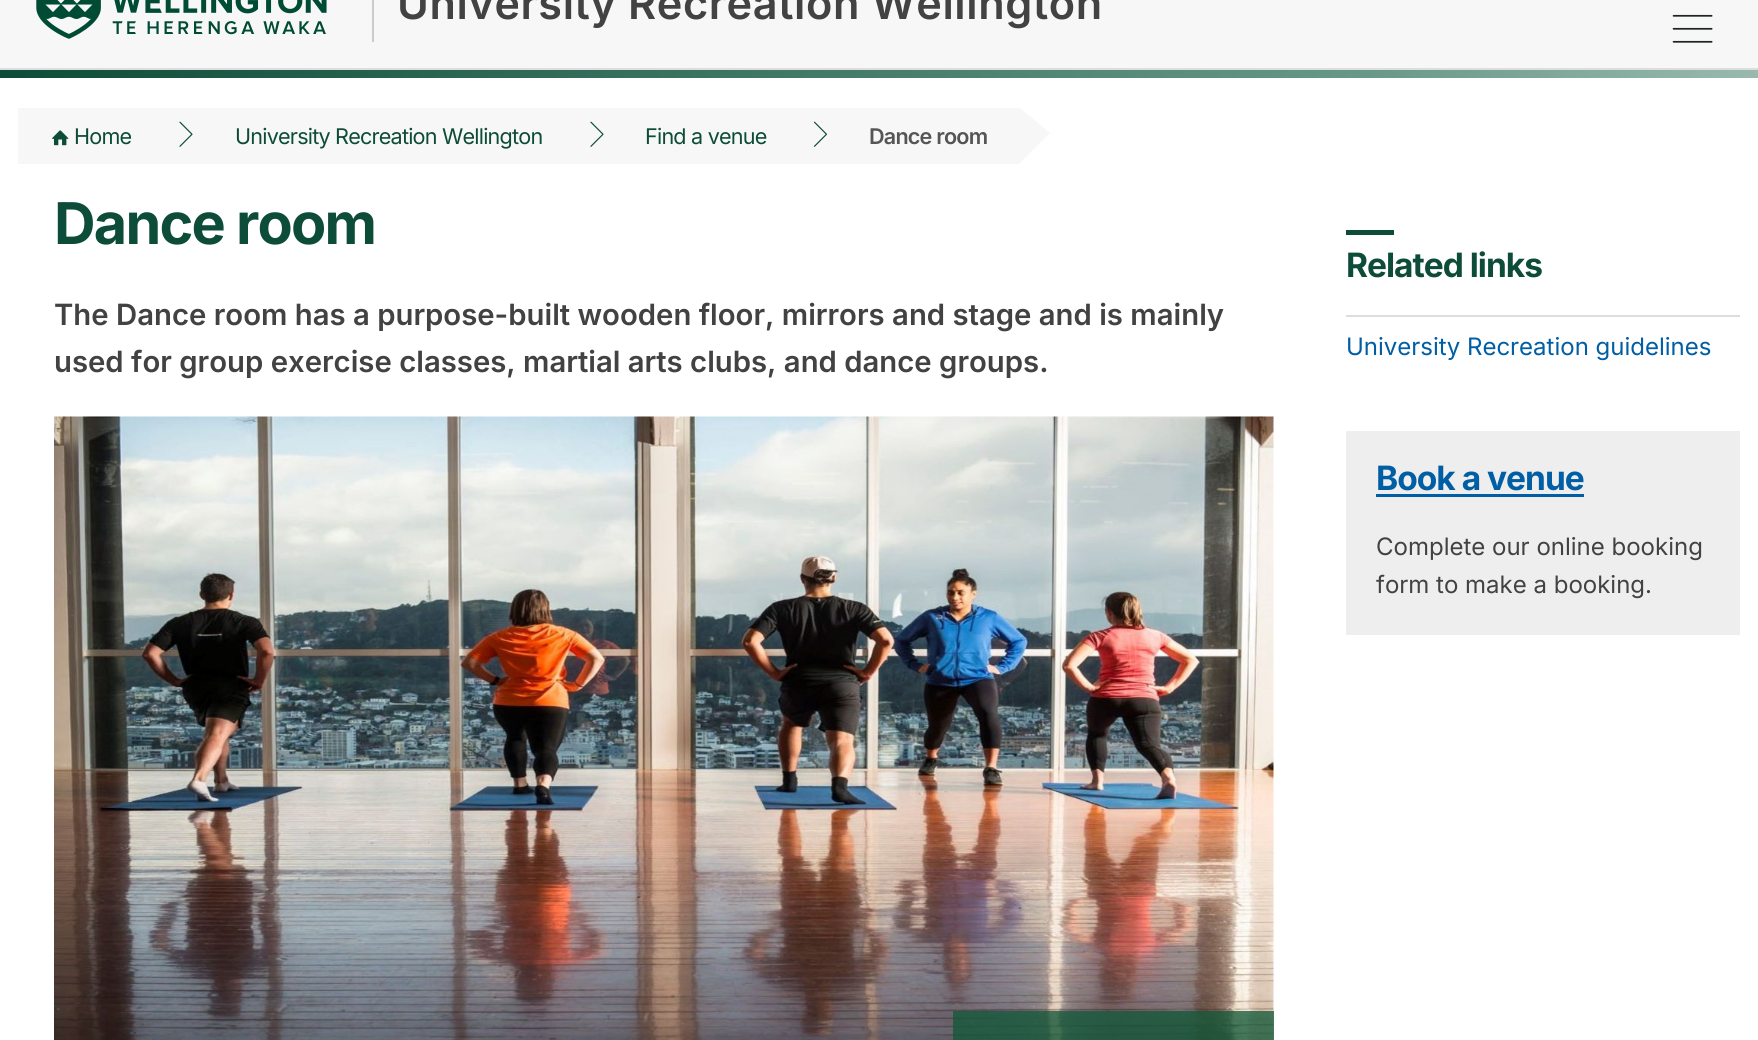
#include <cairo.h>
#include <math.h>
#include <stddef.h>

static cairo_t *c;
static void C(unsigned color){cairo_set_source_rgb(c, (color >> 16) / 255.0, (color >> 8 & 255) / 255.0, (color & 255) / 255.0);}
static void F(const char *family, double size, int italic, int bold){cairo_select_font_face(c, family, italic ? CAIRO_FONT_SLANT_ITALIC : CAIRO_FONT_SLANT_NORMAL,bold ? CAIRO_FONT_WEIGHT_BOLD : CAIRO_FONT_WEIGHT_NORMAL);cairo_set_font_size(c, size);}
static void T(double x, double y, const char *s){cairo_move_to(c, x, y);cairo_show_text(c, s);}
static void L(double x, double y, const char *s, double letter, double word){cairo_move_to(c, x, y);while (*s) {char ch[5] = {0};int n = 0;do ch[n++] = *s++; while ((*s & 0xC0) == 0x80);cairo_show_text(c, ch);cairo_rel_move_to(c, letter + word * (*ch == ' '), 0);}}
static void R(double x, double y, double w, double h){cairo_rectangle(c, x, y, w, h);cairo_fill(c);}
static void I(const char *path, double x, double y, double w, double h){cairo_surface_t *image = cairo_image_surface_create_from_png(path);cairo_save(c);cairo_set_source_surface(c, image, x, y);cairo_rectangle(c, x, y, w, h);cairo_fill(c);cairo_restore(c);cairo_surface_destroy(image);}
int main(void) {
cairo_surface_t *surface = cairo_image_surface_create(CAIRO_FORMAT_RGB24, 1758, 1040);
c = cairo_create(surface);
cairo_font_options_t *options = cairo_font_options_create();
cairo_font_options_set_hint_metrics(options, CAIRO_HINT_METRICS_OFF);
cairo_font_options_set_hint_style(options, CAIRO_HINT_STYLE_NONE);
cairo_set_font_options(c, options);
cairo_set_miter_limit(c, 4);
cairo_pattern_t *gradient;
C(0xffffff);
cairo_paint(c);
C(0xf7f7f7);
R(0,0,1758,68);
C(0xdddddd);
R(0,68,1758,2);
C(0xcccccc);
R(372,0,2,42);
I("1.png",36,0,291,39);
F("Inter SemiBold",43.25,0,0);
C(0x424242);
L(397,19,"University Recreation Wellington",.6,0);
I("2.png",1672,14,41,29);
gradient = cairo_pattern_create_linear(0,74,1758,73);
cairo_pattern_add_color_stop_rgba(gradient,0,0.051,0.298,0.22,1);
cairo_pattern_add_color_stop_rgba(gradient,.77,0.4,0.592,0.529,1);
cairo_pattern_add_color_stop_rgba(gradient,1,0.6,0.725,0.686,1);
cairo_set_source(c,gradient);
cairo_pattern_destroy(gradient);
R(0,70,1758,8);
C(0xf7f7f7);
R(18,108,1002,56);
I("3.png",52,130,17,16);
F("Inter",21.6,0,0);
C(0x0d4c38);
L(74,144,"Home",-.8,0);
I("4.png",179,121,14,26);
L(235,144,"University Recreation Wellington",-.8,0);
I("4.png",590,121,14,26);
L(645,144,"Find a venue",-.8,0);
I("5.png",813,121,14,26);
F("Inter SemiBold",21.6,0,0);
C(0x555555);
L(869,144,"Dance room",-.8,0);
C(0xf7f7f7);
cairo_new_path(c);
cairo_move_to(c,1020,108);
cairo_line_to(c,1050,133);
cairo_line_to(c,1020,163);
cairo_close_path(c);
cairo_fill(c);
F("Inter",57.5,0,1);
C(0x0d4c38);
L(54,244,"Dance room",-1.75,0);
F("Inter SemiBold",29.3,0,0);
C(0x424242);
T(54,325,"The Dance room has a purpose-built wooden floor, mirrors and stage and is mainly");
T(54,372,"used for group exercise classes, martial arts clubs, and dance groups.");
I("6.png",54,416,1220,624);
cairo_set_source_rgba(c,0.067,0.341,0.216,0.75);
R(953,1011,321,29);
C(0x0d4c38);
R(1346,230,48,5);
F("Inter",33.5,0,1);
L(1346,277,"Related links",-1,0);
C(0xdddddd);
R(1346,315,394,2);
F("Inter",24,0,0);
C(0x005ea5);
T(1346,355,"University Recreation guidelines");
C(0xeeeeee);
R(1346,431,394,204);
F("Inter",33.5,0,1);
C(0x005ea5);
L(1376,490,"Book a venue",-1,0);
R(1376,494,208,3);
F("Inter",24,0,0);
C(0x424242);
T(1376,555,"Complete our online booking");
T(1376,593,"form to make a booking.");
cairo_surface_write_to_png(surface, "o.png");
cairo_font_options_destroy(options);
cairo_destroy(c);
cairo_surface_destroy(surface);
return 0;
}
